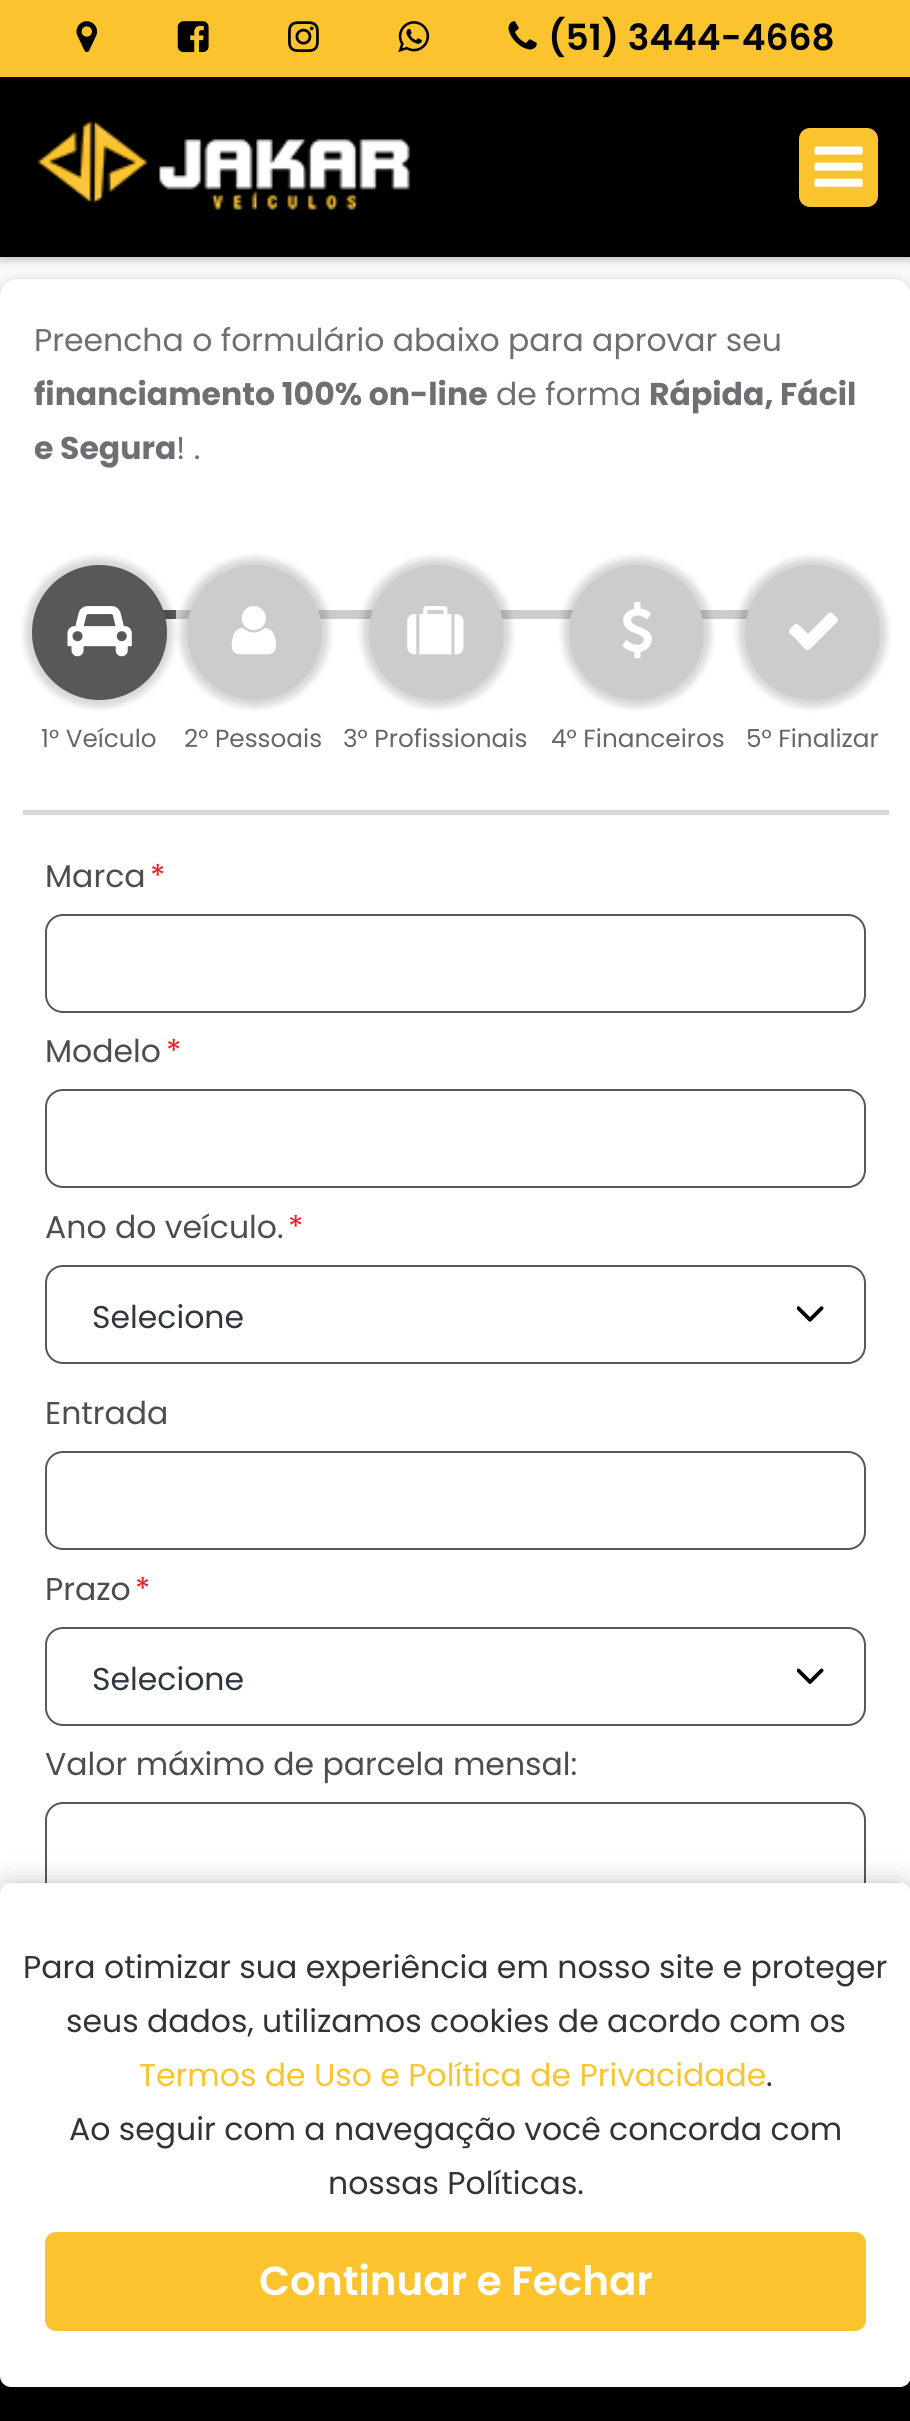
#include <cairo.h>
#include <math.h>
#include <stddef.h>

static cairo_t *c;
static void C(unsigned color){cairo_set_source_rgb(c, (color >> 16) / 255.0, (color >> 8 & 255) / 255.0, (color & 255) / 255.0);}
static void F(const char *family, double size, int italic, int bold){cairo_select_font_face(c, family, italic ? CAIRO_FONT_SLANT_ITALIC : CAIRO_FONT_SLANT_NORMAL,bold ? CAIRO_FONT_WEIGHT_BOLD : CAIRO_FONT_WEIGHT_NORMAL);cairo_set_font_size(c, size);}
static void T(double x, double y, const char *s){cairo_move_to(c, x, y);cairo_show_text(c, s);}
static void R(double x, double y, double w, double h){cairo_rectangle(c, x, y, w, h);cairo_fill(c);}
static void Q(double x, double y, double w, double h, double r){cairo_new_sub_path(c);cairo_arc(c, x + w - r, y + h - r, r, 0, M_PI / 2);cairo_arc(c, x + r, y + h - r, r, M_PI / 2, M_PI);cairo_arc(c, x + r, y + r, r, M_PI, 1.5 * M_PI);cairo_arc(c, x + w - r, y + r, r, 1.5 * M_PI, 2 * M_PI);cairo_close_path(c);}
static void S(double x, double y, double w, double h, double r, double blur, double alpha){cairo_push_group_with_content(c, CAIRO_CONTENT_ALPHA);cairo_set_operator(c, CAIRO_OPERATOR_SOURCE);for (int i = 15; i >= -15 && fmin(w, h) + blur * i / 3 > 0; i -= 2) {double e = blur * i / 6;cairo_set_source_rgba(c, 0, 0, 0, alpha * erfc((i - 1) / 8.5) / 2);Q(x - e, y - e, w + 2 * e, h + 2 * e, fmax(0, fmin(r + e + blur * .6, fmin(w, h) / 2 + e)));cairo_fill(c);}cairo_pattern_t *soft = cairo_pop_group(c);cairo_mask(c, soft);cairo_pattern_destroy(soft);}
static void I(const char *path, double x, double y, double w, double h){cairo_surface_t *image = cairo_image_surface_create_from_png(path);cairo_save(c);cairo_set_source_surface(c, image, x, y);cairo_rectangle(c, x, y, w, h);cairo_fill(c);cairo_restore(c);cairo_surface_destroy(image);}
int main(void) {
cairo_surface_t *surface = cairo_image_surface_create(CAIRO_FORMAT_RGB24, 910, 2421);
c = cairo_create(surface);
cairo_font_options_t *options = cairo_font_options_create();
cairo_font_options_set_hint_metrics(options, CAIRO_HINT_METRICS_OFF);
cairo_font_options_set_hint_style(options, CAIRO_HINT_STYLE_NONE);
cairo_set_font_options(c, options);
cairo_set_miter_limit(c, 4);
C(0xf9f9f9);
cairo_paint(c);
C(0x000000);
S(0,5,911,256,0,3.5,.2);
C(0xfbc32e);
R(0,0,910,77);
I("1.png",76,21,22,32);
I("2.png",177,21,32,32);
I("3.png",288,21,31,32);
I("4.png",398,21,32,32);
I("5.png",508,21,29,29);
F("Poppins SemiBold",36,0,0);
C(0x000000);
T(548,50,"(51) 3444-4668");
R(0,77,910,180);
I("6.png",37,121,374,89);
C(0xfbc32e);
Q(799,128,79,79,11);
cairo_fill(c);
I("7.png",814,146,49,41);
C(0x000000);
S(0,281,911,1942,18,5.5,.2);
C(0xffffff);
Q(0,279,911,1942,18);
cairo_fill(c);
F("Poppins",31.5,0,0);
C(0x6d6f73);
T(34,351,"Preencha o formulário abaixo para aprovar seu");
F("Poppins",31.5,0,1);
T(34,405,"financiamento 100% on-line");
F("Poppins",31.5,0,0);
T(496,405,"de forma");
F("Poppins",31.5,0,1);
T(649,405,"Rápida, Fácil");
T(34,459,"e Segura");
F("Poppins",31.5,0,0);
T(176,459,"! .");
C(0x585858);
R(163,610,13,9);
C(0xcccccc);
R(176,610,573,9);
C(0x000000);
S(25,558,148,149,74,3.5,.16);
C(0x585858);
cairo_arc(c,99.5,632.5,67.5,0,2 * M_PI);
cairo_fill(c);
I("8.png",67,606,65,51);
F("Poppins",24.75,0,0);
C(0x666666);
T(41,747,"1° Veículo");
C(0x000000);
S(180,558,149,149,74.5,3.5,.16);
C(0xcccccc);
cairo_arc(c,254.5,632.5,67.5,0,2 * M_PI);
cairo_fill(c);
I("9.png",231,606,45,49);
C(0x666666);
T(184,747,"2° Pessoais");
C(0x000000);
S(362,558,149,149,74.5,3.5,.16);
C(0xcccccc);
cairo_arc(c,436.5,632.5,67.5,0,2 * M_PI);
cairo_fill(c);
I("10.png",407,606,57,49);
C(0x666666);
T(343,747,"3° Profissionais");
C(0x000000);
S(563,558,148,149,74,3.5,.16);
C(0xcccccc);
cairo_arc(c,636.5,632.5,67.5,0,2 * M_PI);
cairo_fill(c);
I("11.png",622,602,30,57);
C(0x666666);
T(551,747,"4° Financeiros");
C(0x000000);
S(738,558,149,149,74.5,3.5,.16);
C(0xcccccc);
cairo_arc(c,812.5,632.5,67.5,0,2 * M_PI);
cairo_fill(c);
C(0xffffff);
cairo_new_path(c);
cairo_move_to(c,837,618);
cairo_curve_to(c,840,621,835,624,833,626);
cairo_line_to(c,812,647);
cairo_curve_to(c,808,651,807,651,803,647);
cairo_line_to(c,796,639);
cairo_curve_to(c,790,633,786,633,792,627);
cairo_curve_to(c,796,623,796,623,800,626);
cairo_line_to(c,808,634);
cairo_line_to(c,825,617);
cairo_curve_to(c,831,610,831,612,837,618);
cairo_close_path(c);
cairo_fill(c);
C(0x666666);
T(746,747,"5° Finalizar");
C(0xd5d7d8);
R(23,810,866,5);
F("Poppins",31.5,0,0);
C(0x4b4e50);
T(45,887,"Marca");
C(0xed1c24);
T(150,887,"*");
Q(46,915,819,97,17);
C(0x585858);
cairo_stroke(c);
C(0x4b4e50);
T(45,1062,"Modelo");
C(0xed1c24);
T(166,1062,"*");
Q(46,1090,819,97,17);
C(0x585858);
cairo_stroke(c);
C(0x4b4e50);
T(45,1238,"Ano do veículo.");
C(0xed1c24);
T(288,1238,"*");
I("12.png",797,1306,27,16);
Q(46,1266,819,97,17);
C(0x585858);
cairo_stroke(c);
C(0x31353c);
T(92,1328,"Selecione");
C(0x4b4e50);
T(45,1424,"Entrada");
Q(46,1452,819,97,17);
C(0x585858);
cairo_stroke(c);
C(0x4b4e50);
T(45,1600,"Prazo");
C(0xed1c24);
T(135,1600,"*");
I("13.png",797,1668,27,16);
Q(46,1628,819,97,17);
C(0x585858);
cairo_stroke(c);
C(0x31353c);
T(92,1690,"Selecione");
C(0x4b4e50);
T(45,1775,"Valor máximo de parcela mensal:");
Q(46,1803,819,97,17);
C(0x585858);
cairo_stroke(c);
C(0x000000);
R(0,2376,910,45);
C(0x000000);
S(0,1895,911,504,11,17,.5);
S(727,2250,144,144,72,9,.14);
C(0xffffff);
Q(0,1883,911,504,11);
cairo_fill(c);
C(0x333333);
T(23,1978,"Para otimizar sua experiência em nosso site e proteger");
T(66,2032,"seus dados, utilizamos cookies de acordo com os");
C(0xfbc32e);
T(139,2086,"Termos de Uso e Política de Privacidade");
C(0x333333);
T(766,2086,".");
T(69,2140,"Ao seguir com a navegação você concorda com");
T(328,2194,"nossas Políticas.");
C(0xfbc32e);
Q(45,2232,821,99,11);
cairo_fill(c);
F("Poppins SemiBold",40.5,0,0);
C(0xffffff);
T(259,2295,"Continuar e Fechar");
cairo_surface_write_to_png(surface, "o.png");
cairo_font_options_destroy(options);
cairo_destroy(c);
cairo_surface_destroy(surface);
return 0;
}
